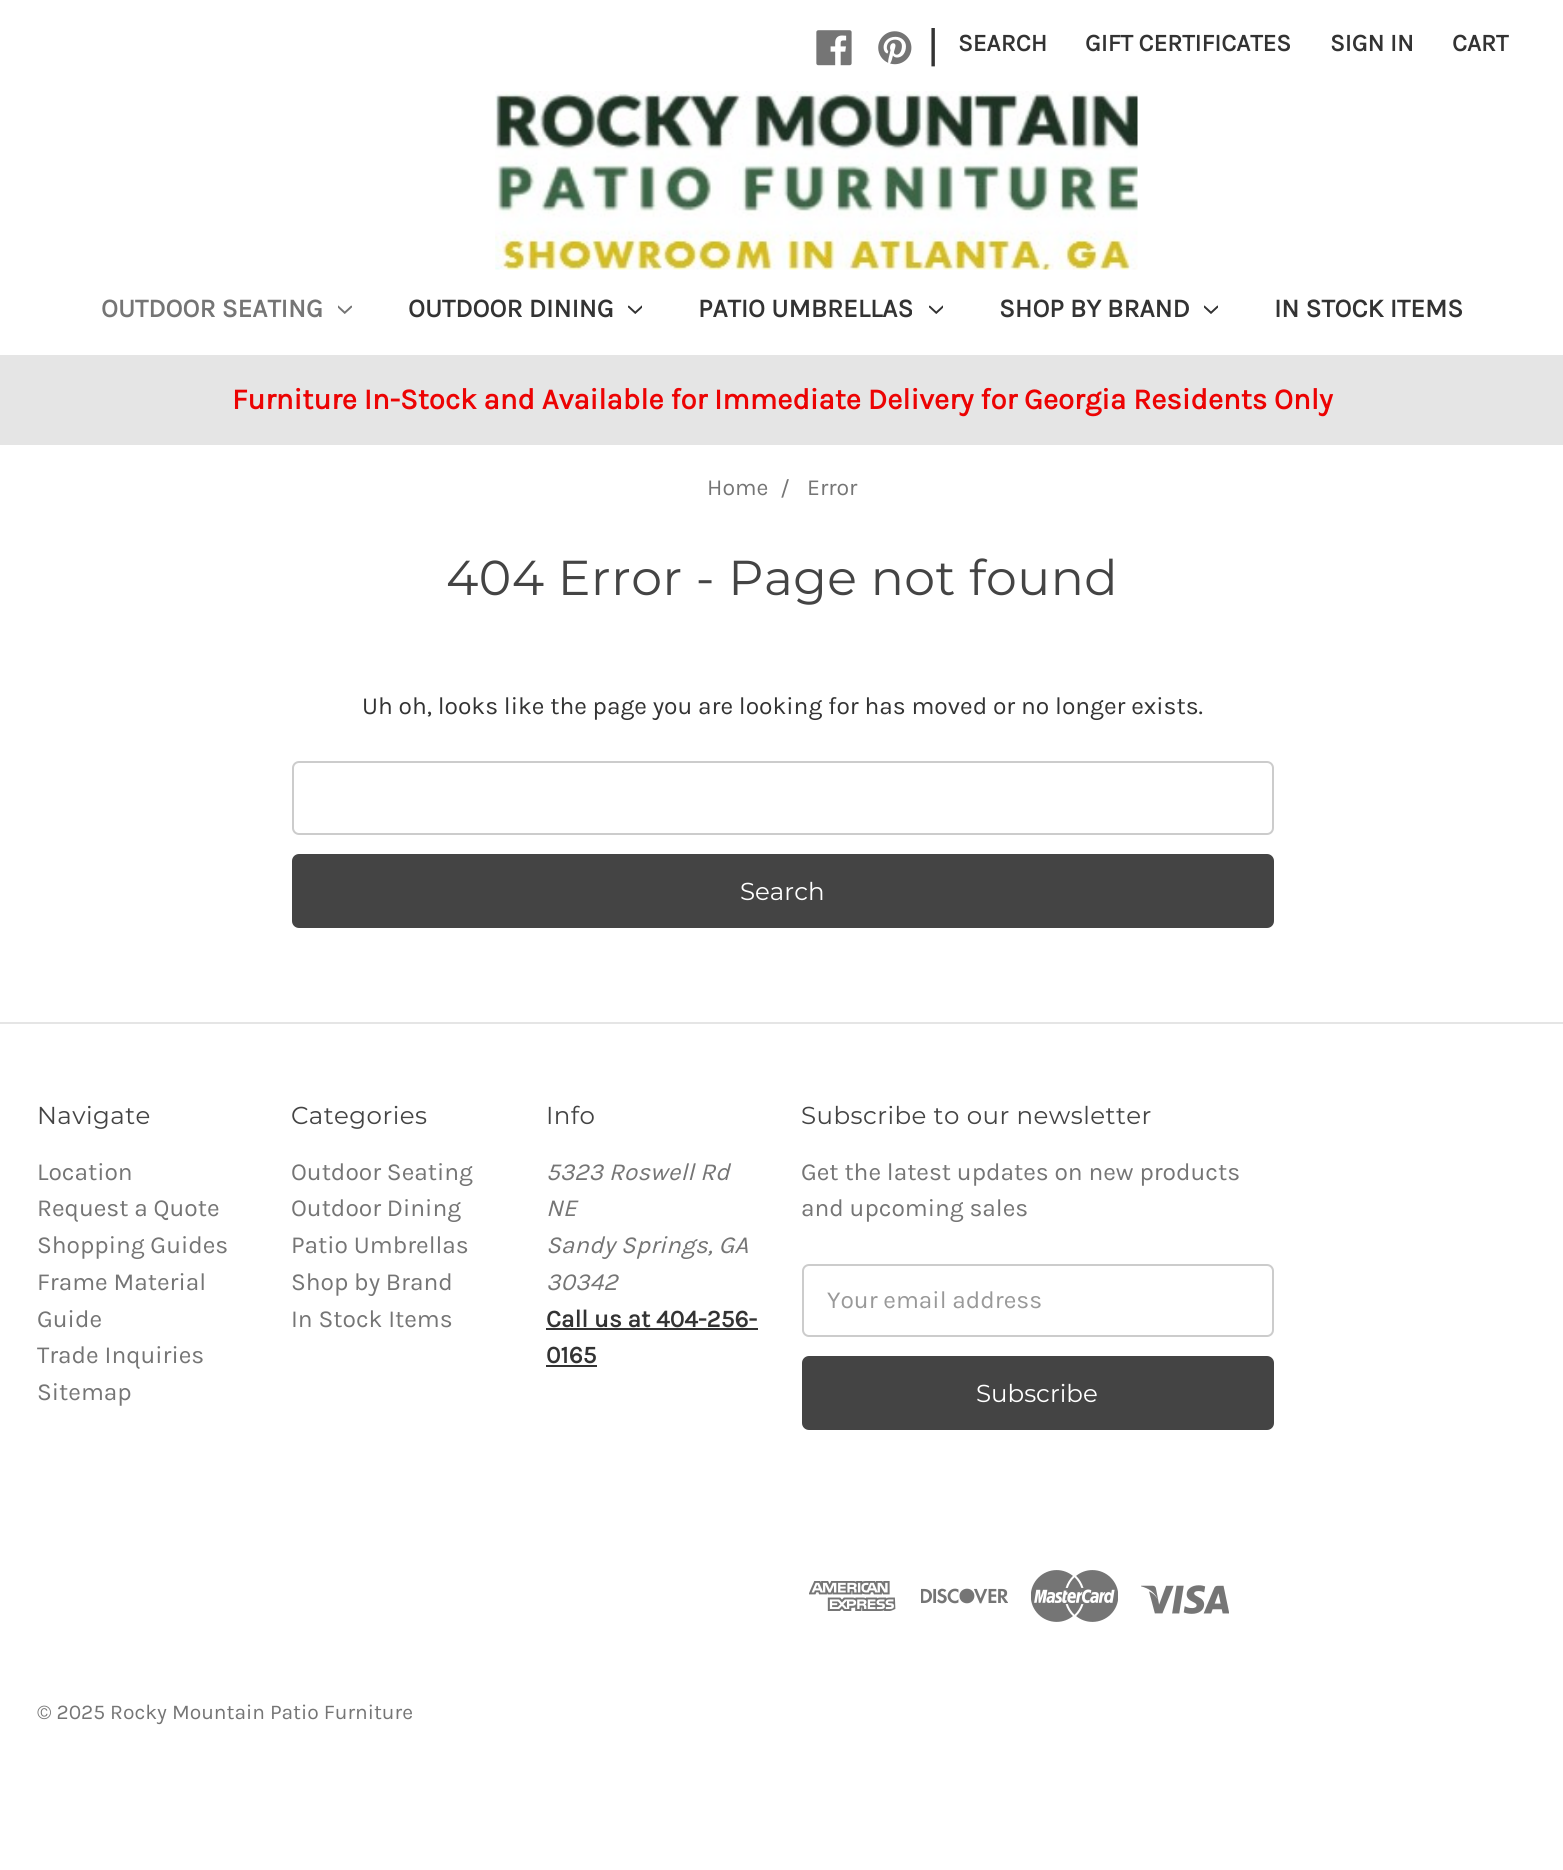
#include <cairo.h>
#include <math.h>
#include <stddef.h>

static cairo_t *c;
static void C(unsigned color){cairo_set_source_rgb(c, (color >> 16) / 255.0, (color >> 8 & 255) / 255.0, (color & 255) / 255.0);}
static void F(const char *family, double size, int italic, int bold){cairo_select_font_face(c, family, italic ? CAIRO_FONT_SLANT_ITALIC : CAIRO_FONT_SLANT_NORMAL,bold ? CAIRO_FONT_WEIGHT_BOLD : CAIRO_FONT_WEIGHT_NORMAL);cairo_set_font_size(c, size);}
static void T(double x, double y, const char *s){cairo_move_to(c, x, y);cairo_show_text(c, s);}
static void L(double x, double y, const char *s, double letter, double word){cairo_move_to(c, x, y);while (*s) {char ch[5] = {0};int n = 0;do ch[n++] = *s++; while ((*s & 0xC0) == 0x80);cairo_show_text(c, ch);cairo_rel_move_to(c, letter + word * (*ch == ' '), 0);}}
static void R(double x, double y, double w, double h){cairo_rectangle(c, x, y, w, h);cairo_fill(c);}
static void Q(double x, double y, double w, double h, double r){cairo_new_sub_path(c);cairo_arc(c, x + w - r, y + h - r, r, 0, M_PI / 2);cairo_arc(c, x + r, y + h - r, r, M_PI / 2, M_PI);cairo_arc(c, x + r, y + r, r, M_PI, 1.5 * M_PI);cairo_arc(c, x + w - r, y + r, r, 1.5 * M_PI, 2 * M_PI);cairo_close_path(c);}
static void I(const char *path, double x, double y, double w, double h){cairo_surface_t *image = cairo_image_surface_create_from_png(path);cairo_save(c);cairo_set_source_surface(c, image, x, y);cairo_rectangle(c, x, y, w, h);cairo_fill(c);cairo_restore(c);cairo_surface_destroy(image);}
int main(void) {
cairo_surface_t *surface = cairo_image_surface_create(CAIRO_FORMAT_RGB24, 1563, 1870);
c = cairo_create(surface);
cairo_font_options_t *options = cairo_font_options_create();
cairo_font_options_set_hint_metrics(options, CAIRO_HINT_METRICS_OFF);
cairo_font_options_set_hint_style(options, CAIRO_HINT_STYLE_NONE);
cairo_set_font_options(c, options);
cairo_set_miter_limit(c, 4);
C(0xffffff);
cairo_paint(c);
C(0xe5e5e5);
R(0,355,1563,90);
I("1.png",816,30,36,36);
I("2.png",878,31,34,34);
F("Karla",44,0,0);
C(0x333333);
T(927,61,"|");
F("Karla",24.5,0,1);
T(958,51,"SEARCH");
T(1085,51,"GIFT CERTIFICATES");
T(1330,51,"SIGN IN");
T(1452,51,"CART");
I("3.png",495,91,643,179);
F("Karla",26.25,0,1);
C(0x757575);
T(101,317,"OUTDOOR SEATING");
I("4.png",338,305,14,9);
C(0x333333);
T(408,317,"OUTDOOR DINING");
I("5.png",628,305,14,9);
T(698,317,"PATIO UMBRELLAS");
I("5.png",929,305,14,9);
T(999,317,"SHOP BY BRAND");
I("6.png",1204,305,14,9);
T(1274,317,"IN STOCK ITEMS");
F("Karla",29.4,0,1);
C(0xec0303);
L(232,409,"Furniture In-Stock and Available for Immediate Delivery for Georgia Residents Only",0,-.1);
F("Karla",23,0,0);
C(0x757575);
T(707,495,"Home");
T(780,496,"/");
T(807,495,"Error");
F("Montserrat Thin",49,0,0);
C(0x444444);
L(446,595,"404 Error - Page not found",.45,0);
F("Karla",24.5,0,0);
C(0x333333);
T(362,714,"Uh oh, looks like the page you are looking for has moved or no longer exists.");
Q(293,762,980,72,6);
C(0xcccccc);
cairo_stroke(c);
C(0x444444);
Q(293,855,980,72,6);
cairo_fill_preserve(c);
cairo_stroke(c);
F("Montserrat Thin",24.5,0,0);
C(0xffffff);
T(740,900,"Search");
C(0xe5e5e5);
R(0,1022,1563,2);
C(0x444444);
L(37,1124,"Navigate",.45,0);
F("Karla",24.5,0,0);
C(0x757575);
T(37,1180,"Location");
T(37,1216,"Request a Quote");
T(37,1253,"Shopping Guides");
T(37,1290,"Frame Material");
T(37,1327,"Guide");
T(37,1363,"Trade Inquiries");
T(37,1400,"Sitemap");
F("Montserrat Thin",24.5,0,0);
C(0x444444);
L(291,1124,"Categories",.45,0);
F("Karla",24.5,0,0);
C(0x757575);
T(291,1180,"Outdoor Seating");
T(291,1216,"Outdoor Dining");
T(291,1253,"Patio Umbrellas");
T(291,1290,"Shop by Brand");
T(291,1327,"In Stock Items");
F("Montserrat Thin",24.5,0,0);
C(0x444444);
L(546,1124,"Info",.45,0);
F("Karla",24.5,1,0);
C(0x757575);
T(546,1180,"5323 Roswell Rd");
T(546,1216,"NE");
T(546,1253,"Sandy Springs, GA");
T(546,1290,"30342");
F("Karla",24.5,0,1);
C(0x333333);
T(546,1327,"Call us at 404-256-");
R(546,1328,212,2);
T(546,1363,"0165");
R(546,1365,51,2);
F("Montserrat Thin",24.5,0,0);
C(0x444444);
L(801,1124,"Subscribe to our newsletter",.45,0);
F("Karla",24.5,0,0);
C(0x757575);
T(801,1180,"Get the latest updates on new products");
T(801,1216,"and upcoming sales");
Q(803,1265,470,71,6);
C(0xcccccc);
cairo_stroke(c);
C(0x999999);
T(827,1308,"Your email address");
C(0x444444);
Q(803,1357,470,72,6);
cairo_fill_preserve(c);
cairo_stroke(c);
F("Montserrat Thin",24.5,0,0);
C(0xffffff);
T(976,1402,"Subscribe");
I("7.png",809,1581,87,30);
I("8.png",921,1588,87,16);
I("9.png",1031,1570,87,52);
I("10.png",1141,1585,88,29);
F("Karla",21,0,0);
C(0x757575);
T(37,1719,"© 2025 Rocky Mountain Patio Furniture");
cairo_surface_write_to_png(surface, "o.png");
cairo_font_options_destroy(options);
cairo_destroy(c);
cairo_surface_destroy(surface);
return 0;
}
